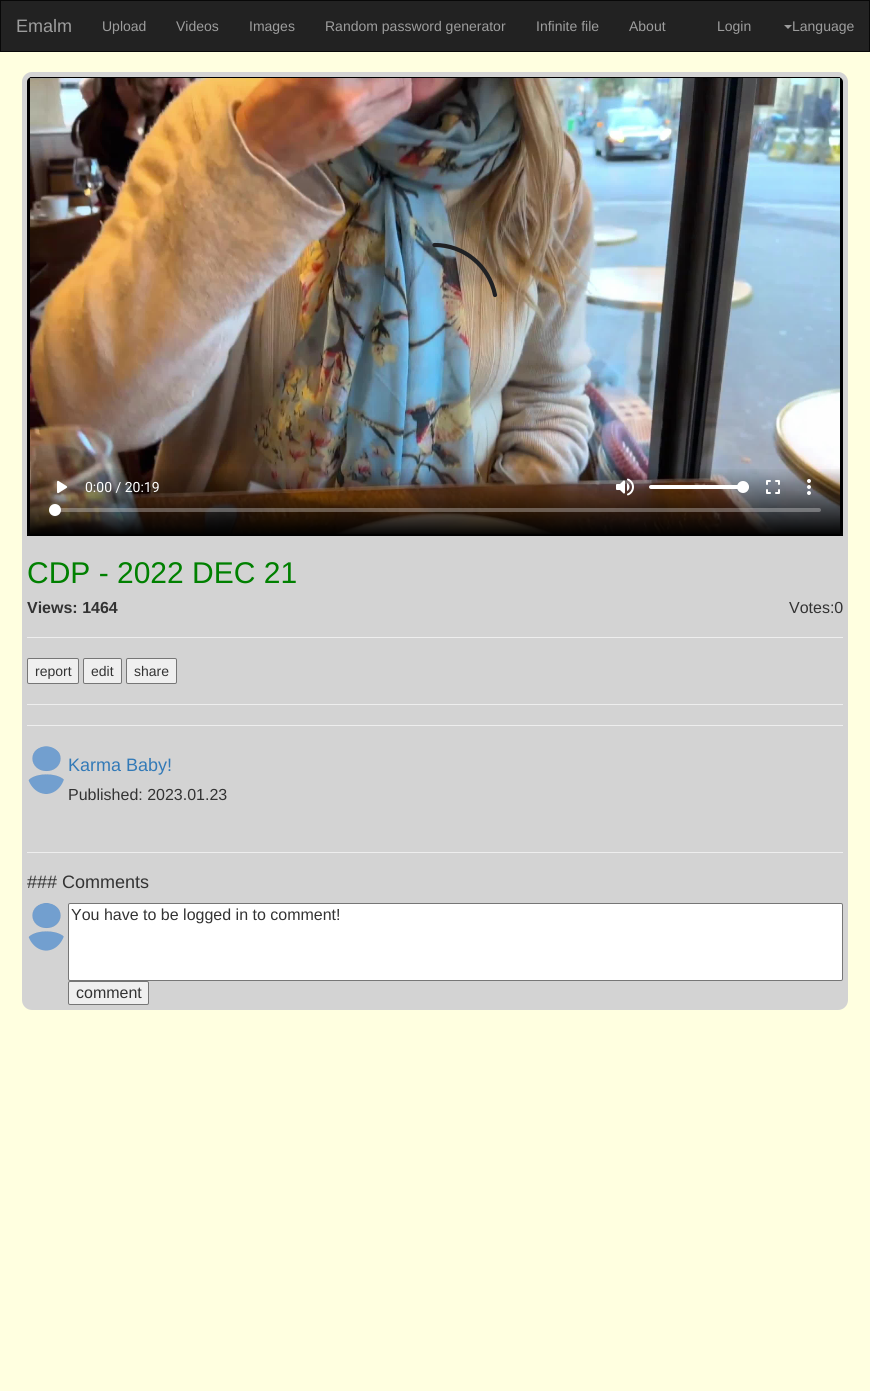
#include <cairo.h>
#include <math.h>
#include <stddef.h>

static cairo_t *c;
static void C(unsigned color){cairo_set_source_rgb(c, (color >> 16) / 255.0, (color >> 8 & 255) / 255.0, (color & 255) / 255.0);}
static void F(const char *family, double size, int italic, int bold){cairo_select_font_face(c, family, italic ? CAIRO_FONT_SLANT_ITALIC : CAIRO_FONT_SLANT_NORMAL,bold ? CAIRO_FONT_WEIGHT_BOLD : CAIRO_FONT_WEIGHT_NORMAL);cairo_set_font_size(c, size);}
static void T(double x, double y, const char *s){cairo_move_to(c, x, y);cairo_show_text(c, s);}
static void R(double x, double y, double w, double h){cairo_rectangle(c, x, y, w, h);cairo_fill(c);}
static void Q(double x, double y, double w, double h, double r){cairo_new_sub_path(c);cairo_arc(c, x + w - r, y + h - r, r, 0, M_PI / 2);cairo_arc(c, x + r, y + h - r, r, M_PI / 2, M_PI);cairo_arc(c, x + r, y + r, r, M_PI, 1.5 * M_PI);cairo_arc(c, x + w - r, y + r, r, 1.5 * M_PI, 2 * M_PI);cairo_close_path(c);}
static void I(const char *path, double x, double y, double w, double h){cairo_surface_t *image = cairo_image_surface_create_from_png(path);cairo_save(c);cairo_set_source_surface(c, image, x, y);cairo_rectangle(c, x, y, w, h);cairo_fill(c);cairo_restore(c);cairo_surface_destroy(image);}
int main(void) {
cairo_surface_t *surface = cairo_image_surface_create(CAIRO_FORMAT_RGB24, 870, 1391);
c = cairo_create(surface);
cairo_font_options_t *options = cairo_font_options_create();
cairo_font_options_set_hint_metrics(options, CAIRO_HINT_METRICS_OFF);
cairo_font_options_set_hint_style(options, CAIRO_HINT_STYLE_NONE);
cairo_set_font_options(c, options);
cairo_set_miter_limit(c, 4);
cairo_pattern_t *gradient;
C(0xffffe0);
cairo_paint(c);
C(0x222222);
cairo_rectangle(c,.5,.5,869,51);
cairo_fill_preserve(c);
C(0x080808);
cairo_set_line_width(c,1);
cairo_stroke(c);
F("Liberation Sans",18,0,0);
C(0x9d9d9d);
T(16,32,"Emalm");
F("Liberation Sans",14,0,0);
T(102,31,"Upload");
T(176,31,"Videos");
T(249,31,"Images");
T(325,31,"Random password generator");
T(536,31,"Infinite file");
T(629,31,"About");
T(717,31,"Login");
cairo_new_path(c);
cairo_move_to(c,784,25);
cairo_line_to(c,792,25);
cairo_line_to(c,788,29);
cairo_close_path(c);
cairo_fill(c);
T(792,31,"Language");
C(0xd3d3d3);
Q(22,72,826,938,10);
cairo_fill(c);
C(0x000000);
Q(27,77,816,459,5);
cairo_fill(c);
I("1.png",30,77,810,459);
cairo_new_path(c);
cairo_move_to(c,434.5,245);
cairo_curve_to(c,464.5,245,489.5,266.5,495,295);
C(0x202124);
cairo_set_line_width(c,4.2);
cairo_set_line_cap(c,CAIRO_LINE_CAP_ROUND);
cairo_stroke(c);
gradient = cairo_pattern_create_linear(435,536,435,77);
cairo_pattern_add_color_stop_rgba(gradient,0,0,0,0,1);
cairo_pattern_add_color_stop_rgba(gradient,.15,0,0,0,0);
cairo_set_source(c,gradient);
cairo_pattern_destroy(gradient);
R(27,469,816,67);
I("2.png",57,480,11,14);
F("Roboto",14,0,0);
C(0xffffff);
T(85,492,"0:00 / 20:19");
I("3.png",616,478,18,18);
Q(649,485,100,4,2);
cairo_fill(c);
cairo_arc(c,743,487,6,0,2 * M_PI);
cairo_fill(c);
I("4.png",766,480,14,14);
I("5.png",807,479,4,16);
cairo_set_source_rgba(c,1,1,1,0.3);
Q(49,508,772,4,2);
cairo_fill(c);
C(0xffffff);
cairo_arc(c,55,510,6,0,2 * M_PI);
cairo_fill(c);
F("Liberation Sans",30,0,0);
C(0x008000);
T(27,583,"CDP - 2022 DEC 21");
F("Liberation Sans",16,0,1);
C(0x333333);
T(27,613,"Views: 1464");
F("Liberation Sans",16,0,0);
T(789,613,"Votes:0");
C(0xeeeeee);
R(27,637,816,1);
C(0xefefef);
Q(27.5,658.5,51,25,1.5);
cairo_fill_preserve(c);
C(0x767676);
cairo_set_line_width(c,1);
cairo_set_line_cap(c,CAIRO_LINE_CAP_BUTT);
cairo_stroke(c);
F("Liberation Sans",14,0,0);
C(0x333333);
T(35,676,"report");
C(0xefefef);
Q(83.5,658.5,38,25,1.5);
cairo_fill_preserve(c);
C(0x767676);
cairo_stroke(c);
C(0x333333);
T(91,676,"edit");
C(0xefefef);
Q(126.5,658.5,50,25,1.5);
cairo_fill_preserve(c);
C(0x767676);
cairo_stroke(c);
C(0x333333);
T(134,676,"share");
C(0xeeeeee);
R(27,704,816,1);
R(27,725,816,1);
I("6.png",28,746,36,48);
F("Liberation Sans",18,0,0);
C(0x337ab7);
T(68,771,"Karma Baby!");
F("Liberation Sans",16,0,0);
C(0x333333);
T(68,800,"Published: 2023.01.23");
C(0xeeeeee);
R(27,852,816,1);
F("Liberation Sans",18,0,0);
C(0x333333);
T(27,888,"### Comments");
I("7.png",28,903,36,48);
C(0xffffff);
Q(68.5,903.5,774,77,1.5);
cairo_fill_preserve(c);
C(0x767676);
cairo_stroke(c);
F("Liberation Sans",16,0,0);
C(0x333333);
T(71,920,"You have to be logged in to comment!");
C(0xefefef);
Q(68.5,981.5,80,23,1.5);
cairo_fill_preserve(c);
C(0x767676);
cairo_stroke(c);
C(0x333333);
T(76,998,"comment");
cairo_surface_write_to_png(surface, "o.png");
cairo_font_options_destroy(options);
cairo_destroy(c);
cairo_surface_destroy(surface);
return 0;
}
